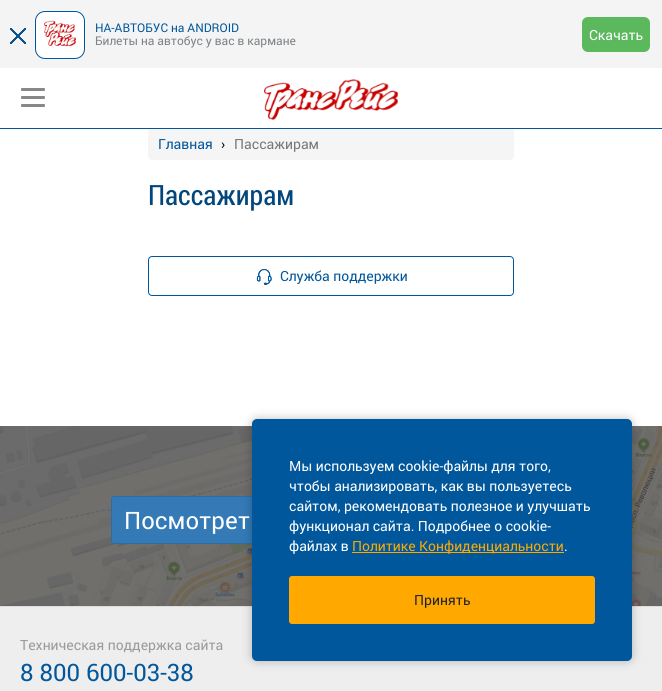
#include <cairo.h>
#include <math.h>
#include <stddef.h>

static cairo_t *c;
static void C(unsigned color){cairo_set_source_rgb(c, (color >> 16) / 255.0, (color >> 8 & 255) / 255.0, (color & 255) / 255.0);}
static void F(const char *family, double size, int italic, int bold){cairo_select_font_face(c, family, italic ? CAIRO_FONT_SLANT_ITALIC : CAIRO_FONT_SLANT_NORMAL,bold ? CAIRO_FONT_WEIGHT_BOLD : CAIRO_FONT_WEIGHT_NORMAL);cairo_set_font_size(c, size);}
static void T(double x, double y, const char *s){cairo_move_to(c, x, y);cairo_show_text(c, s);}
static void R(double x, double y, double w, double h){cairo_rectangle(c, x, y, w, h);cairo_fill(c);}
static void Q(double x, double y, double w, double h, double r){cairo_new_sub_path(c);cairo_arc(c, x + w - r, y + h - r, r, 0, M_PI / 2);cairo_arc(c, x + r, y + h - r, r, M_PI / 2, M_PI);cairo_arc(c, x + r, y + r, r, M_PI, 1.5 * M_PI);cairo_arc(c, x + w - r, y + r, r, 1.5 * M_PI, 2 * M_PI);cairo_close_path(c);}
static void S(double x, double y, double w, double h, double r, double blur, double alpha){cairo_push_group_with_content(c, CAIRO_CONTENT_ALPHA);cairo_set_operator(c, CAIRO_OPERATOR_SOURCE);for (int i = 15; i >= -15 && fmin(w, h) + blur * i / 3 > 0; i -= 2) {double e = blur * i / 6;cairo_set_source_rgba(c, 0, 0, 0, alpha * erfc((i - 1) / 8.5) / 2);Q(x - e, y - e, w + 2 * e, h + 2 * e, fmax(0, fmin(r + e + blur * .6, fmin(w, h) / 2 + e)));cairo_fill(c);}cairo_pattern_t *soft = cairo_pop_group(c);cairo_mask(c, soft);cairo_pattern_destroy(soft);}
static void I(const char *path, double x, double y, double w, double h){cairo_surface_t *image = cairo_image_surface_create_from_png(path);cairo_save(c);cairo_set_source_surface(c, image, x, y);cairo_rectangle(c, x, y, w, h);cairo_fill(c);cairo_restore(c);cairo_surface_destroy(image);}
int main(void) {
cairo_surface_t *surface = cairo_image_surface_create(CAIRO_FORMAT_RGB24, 662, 691);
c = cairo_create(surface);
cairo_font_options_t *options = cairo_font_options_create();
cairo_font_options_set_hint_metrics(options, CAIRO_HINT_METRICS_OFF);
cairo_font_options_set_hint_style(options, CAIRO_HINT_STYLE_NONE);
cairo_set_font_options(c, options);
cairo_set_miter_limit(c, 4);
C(0xffffff);
cairo_paint(c);
C(0xf5f5f5);
Q(148,128,366,32,4);
cairo_fill(c);
C(0x01579b);
R(0,128,662,1);
C(0xf4f4f4);
R(0,0,662,68);
I("1.png",10,28,16,16);
C(0xffffff);
Q(35.5,11.5,49,47,9.5);
cairo_fill_preserve(c);
C(0x00579b);
cairo_set_line_width(c,1);
cairo_stroke(c);
I("2.png",44,20,32,27);
F("Roboto",12,0,0);
C(0x01579b);
T(95,32,"НА-АВТОБУС на ANDROID");
C(0x7d8388);
T(95,45,"Билеты на автобус у вас в кармане");
C(0x5cb85d);
Q(582,17,68,35,6);
cairo_fill(c);
F("Roboto",14,0,0);
C(0xffffff);
T(589,40,"Скачать");
C(0x888888);
Q(21,88,24,3,1);
cairo_fill(c);
Q(21,96,24,3,1);
cairo_fill(c);
Q(21,104,24,3,1);
cairo_fill(c);
I("3.png",264,79,134,41);
I("4.png",0,426,662,180);
C(0x337ab7);
Q(111.5,496.5,439,47,2.5);
cairo_fill_preserve(c);
C(0x2e6da4);
cairo_stroke(c);
F("Roboto",24,0,0);
C(0xffffff);
T(124,529,"Посмотрет");
C(0xeeeeee);
R(0,607,662,84);
C(0xdddddd);
R(0,606,662,1);
F("Roboto",14,0,0);
C(0x9a9a9a);
T(20,650,"Техническая поддержка сайта");
F("Roboto",24,0,0);
C(0x01579b);
T(20,681,"8 800 600-03-38");
F("Roboto",14,0,0);
T(158,149,"Главная");
C(0x000000);
T(221,149,"›");
C(0x777777);
T(234,149,"Пассажирам");
F("Roboto Condensed",28,0,0);
C(0x01467c);
T(148,205,"Пассажирам");
Q(148.5,256.5,365,39,3.5);
C(0x01579b);
cairo_stroke(c);
I("5.png",256,269,16,16);
F("Roboto",14,0,0);
T(280,281,"Служба поддержки");
C(0x000000);
S(252,419,380,242,5,5,.25);
C(0x01579b);
Q(252,419,380,242,5);
cairo_fill(c);
C(0xffffff);
T(289,471,"Мы используем cookie-файлы для того,");
T(289,491,"чтобы анализировать, как вы пользуетесь");
T(289,511,"сайтом, рекомендовать полезное и улучшать");
T(289,531,"функционал сайта. Подробнее о cookie-");
T(289,551,"файлах в");
C(0xffa800);
R(352,552,212,1);
T(352,551,"Политике Конфиденциальности");
C(0xffffff);
T(564,551,".");
C(0xffa800);
Q(289,576,306,48,3);
cairo_fill(c);
C(0x222222);
T(414,605,"Принять");
cairo_surface_write_to_png(surface, "o.png");
cairo_font_options_destroy(options);
cairo_destroy(c);
cairo_surface_destroy(surface);
return 0;
}
